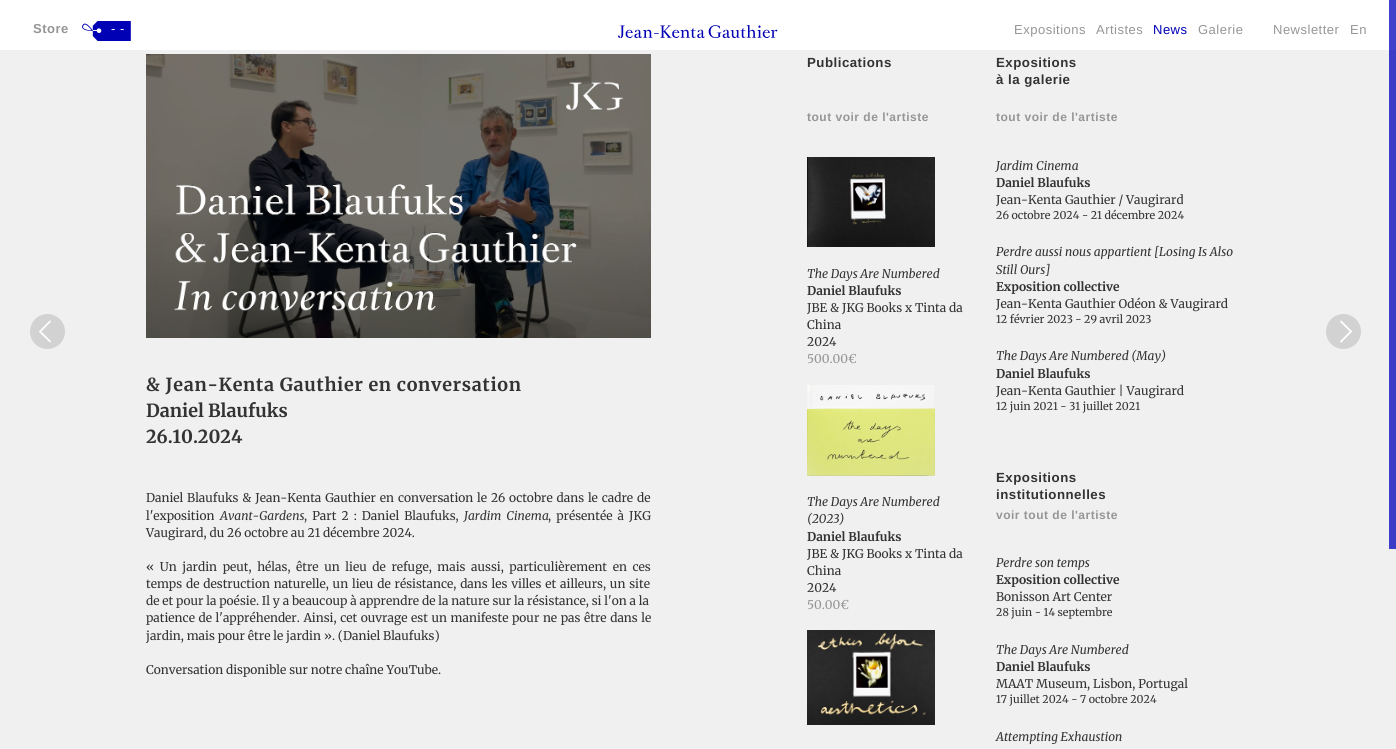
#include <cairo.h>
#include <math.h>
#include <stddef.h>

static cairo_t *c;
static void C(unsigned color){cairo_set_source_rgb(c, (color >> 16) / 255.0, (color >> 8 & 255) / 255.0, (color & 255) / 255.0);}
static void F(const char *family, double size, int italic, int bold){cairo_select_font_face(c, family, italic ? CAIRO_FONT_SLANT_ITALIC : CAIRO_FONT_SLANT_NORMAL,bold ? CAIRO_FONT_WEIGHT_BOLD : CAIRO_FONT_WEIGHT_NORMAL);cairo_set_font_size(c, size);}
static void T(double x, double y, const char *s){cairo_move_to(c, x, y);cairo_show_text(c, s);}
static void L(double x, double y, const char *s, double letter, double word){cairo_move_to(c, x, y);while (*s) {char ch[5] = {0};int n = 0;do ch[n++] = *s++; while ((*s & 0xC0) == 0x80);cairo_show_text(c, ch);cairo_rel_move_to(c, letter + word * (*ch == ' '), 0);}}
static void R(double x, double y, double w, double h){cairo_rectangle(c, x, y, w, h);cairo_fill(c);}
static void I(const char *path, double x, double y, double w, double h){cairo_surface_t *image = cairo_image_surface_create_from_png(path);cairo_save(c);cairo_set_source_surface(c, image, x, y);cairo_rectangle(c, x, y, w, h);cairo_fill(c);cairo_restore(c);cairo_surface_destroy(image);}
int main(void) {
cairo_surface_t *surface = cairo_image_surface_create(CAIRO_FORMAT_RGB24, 1396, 749);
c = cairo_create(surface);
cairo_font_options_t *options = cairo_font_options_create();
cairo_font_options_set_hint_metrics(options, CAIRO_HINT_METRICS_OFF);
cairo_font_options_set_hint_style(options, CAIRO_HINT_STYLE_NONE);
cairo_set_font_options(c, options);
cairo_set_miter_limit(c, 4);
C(0xf0f0f0);
cairo_paint(c);
C(0x3c3cc7);
R(1389,50,7,499);
C(0xffffff);
R(0,0,1389,50);
C(0x4040cb);
R(1389,0,7,50);
F("Arimo",13,0,1);
C(0x969696);
L(33,33,"Store",.5,0);
I("1.png",82,21,49,20);
F("Arimo",13,0,0);
C(0xffffff);
L(111,33,"- -",.5,0);
I("2.png",618,25,160,13);
C(0x969696);
L(1014,34,"Expositions",.5,0);
L(1096,34,"Artistes",.5,0);
C(0x0000b9);
L(1153,34,"News",.5,0);
C(0x969696);
L(1198,34,"Galerie",.5,0);
L(1273,34,"Newsletter",.5,0);
L(1350,34,"En",.5,0);
I("3.png",146,54,505,284);
F("Merriweather",18,0,1);
C(0x333333);
L(146,391,"& Jean-Kenta Gauthier en conversation",.7,0);
T(146,417,"Daniel Blaufuks");
T(146,443,"26.10.2024");
F("Merriweather",12,0,0);
L(146,502,"Daniel Blaufuks & Jean-Kenta Gauthier en conversation le 26 octobre dans le cadre de",0,1);
T(146,520,"l'exposition");
F("Merriweather",12,1,0);
T(220,520,"Avant-Gardens");
F("Merriweather",12,0,0);
L(304,520,", Part 2 : Daniel Blaufuks,",0,2.25);
F("Merriweather",12,1,0);
L(464,520,"Jardim Cinema",0,2.25);
F("Merriweather",12,0,0);
L(548,520,", présentée à JKG",0,2.25);
T(146,537,"Vaugirard, du 26 octobre au 21 décembre 2024.");
L(146,571,"« Un jardin peut, hélas, être un lieu de refuge, mais aussi, particulièrement en ces",0,2.75);
L(146,588,"temps de destruction naturelle, un lieu de résistance, dans les villes et ailleurs, un site",0,1);
T(146,605,"de et pour la poésie. Il y a beaucoup à apprendre de la nature sur la résistance, si l'on a la");
L(146,622,"patience de l'appréhender. Ainsi, cet ouvrage est un manifeste pour ne pas être dans le",0,.75);
T(146,640,"jardin, mais pour être le jardin ». (Daniel Blaufuks)");
T(146,674,"Conversation disponible sur notre chaîne YouTube.");
F("Arimo",13.25,0,1);
L(807,67,"Publications",.5,0);
F("Arimo",12,0,1);
C(0x969696);
L(807,121,"tout voir de l'artiste",.5,0);
I("4.png",807,157,128,90);
F("Merriweather",12,1,0);
C(0x333333);
T(807,278,"The Days Are Numbered");
F("Merriweather",12,0,1);
T(807,295,"Daniel Blaufuks");
F("Merriweather",12,0,0);
T(807,312,"JBE & JKG Books x Tinta da");
T(807,329,"China");
T(807,346,"2024");
C(0x969696);
T(807,363,"500.00€");
I("5.png",807,385,128,91);
F("Merriweather",12,1,0);
C(0x333333);
T(807,506,"The Days Are Numbered");
T(807,523,"(2023)");
F("Merriweather",12,0,1);
T(807,541,"Daniel Blaufuks");
F("Merriweather",12,0,0);
T(807,558,"JBE & JKG Books x Tinta da");
T(807,575,"China");
T(807,592,"2024");
C(0x969696);
T(807,609,"50.00€");
I("6.png",807,630,128,95);
F("Arimo",13.25,0,1);
C(0x333333);
L(996,67,"Expositions",.5,0);
L(996,84,"à la galerie",.5,0);
F("Arimo",12,0,1);
C(0x969696);
L(996,121,"tout voir de l'artiste",.5,0);
F("Merriweather",12,1,0);
C(0x333333);
T(996,170,"Jardim Cinema");
F("Merriweather",12,0,1);
T(996,187,"Daniel Blaufuks");
F("Merriweather",12,0,0);
T(996,204,"Jean-Kenta Gauthier / Vaugirard");
F("Merriweather",10.75,0,0);
T(996,219,"26 octobre 2024 - 21 décembre 2024");
F("Merriweather",12,1,0);
T(996,256,"Perdre aussi nous appartient [Losing Is Also");
T(996,274,"Still Ours]");
F("Merriweather",12,0,1);
T(996,291,"Exposition collective");
F("Merriweather",12,0,0);
T(996,308,"Jean-Kenta Gauthier Odéon & Vaugirard");
F("Merriweather",10.75,0,0);
T(996,323,"12 février 2023 - 29 avril 2023");
F("Merriweather",12,1,0);
T(996,360,"The Days Are Numbered (May)");
F("Merriweather",12,0,1);
T(996,378,"Daniel Blaufuks");
F("Merriweather",12,0,0);
T(996,395,"Jean-Kenta Gauthier | Vaugirard");
F("Merriweather",10.75,0,0);
T(996,410,"12 juin 2021 - 31 juillet 2021");
F("Arimo",13.25,0,1);
L(996,482,"Expositions",.5,0);
L(996,499,"institutionnelles",.5,0);
F("Arimo",12,0,1);
C(0x969696);
L(996,519,"voir tout de l'artiste",.5,0);
F("Merriweather",12,1,0);
C(0x333333);
T(996,567,"Perdre son temps");
F("Merriweather",12,0,1);
T(996,584,"Exposition collective");
F("Merriweather",12,0,0);
T(996,601,"Bonisson Art Center");
F("Merriweather",10.75,0,0);
T(996,616,"28 juin - 14 septembre");
F("Merriweather",12,1,0);
T(996,654,"The Days Are Numbered");
F("Merriweather",12,0,1);
T(996,671,"Daniel Blaufuks");
F("Merriweather",12,0,0);
T(996,688,"MAAT Museum, Lisbon, Portugal");
F("Merriweather",10.75,0,0);
T(996,703,"17 juillet 2024 - 7 octobre 2024");
F("Merriweather",12,1,0);
T(996,741,"Attempting Exhaustion");
I("7.png",30,314,35,35);
I("8.png",1326,314,35,35);
cairo_surface_write_to_png(surface, "o.png");
cairo_font_options_destroy(options);
cairo_destroy(c);
cairo_surface_destroy(surface);
return 0;
}
